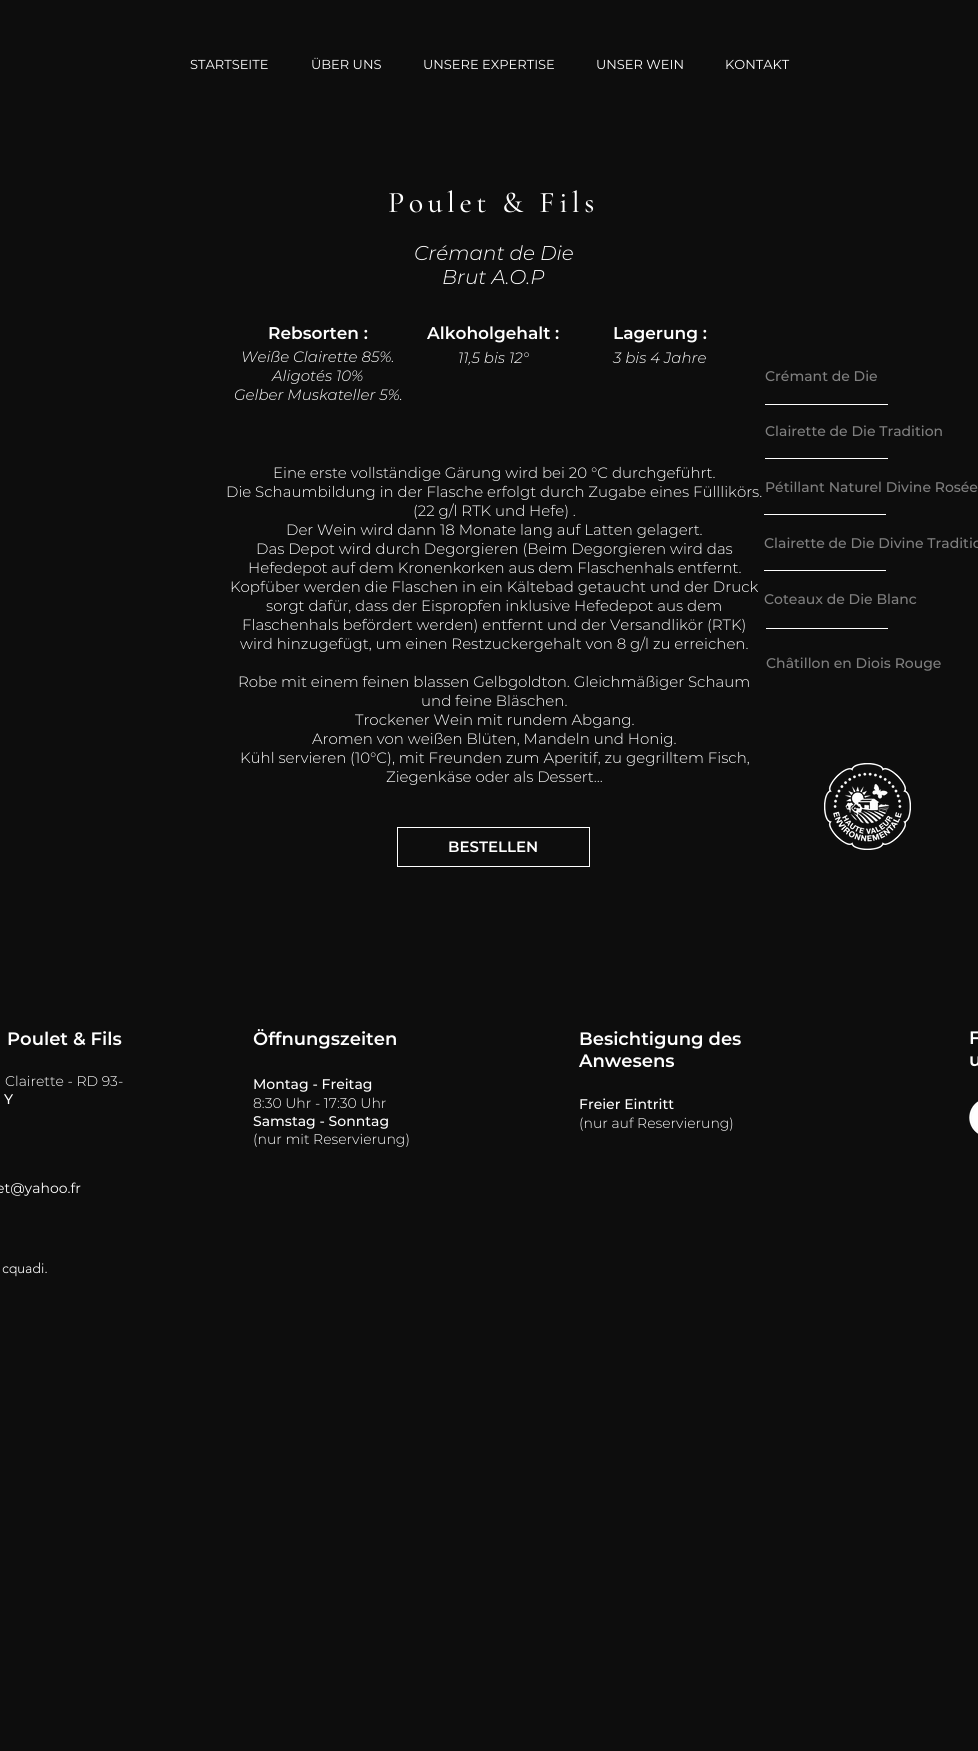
#include <cairo.h>
#include <math.h>
#include <stddef.h>

static cairo_t *c;
static void C(unsigned color){cairo_set_source_rgb(c, (color >> 16) / 255.0, (color >> 8 & 255) / 255.0, (color & 255) / 255.0);}
static void F(const char *family, double size, int italic, int bold){cairo_select_font_face(c, family, italic ? CAIRO_FONT_SLANT_ITALIC : CAIRO_FONT_SLANT_NORMAL,bold ? CAIRO_FONT_WEIGHT_BOLD : CAIRO_FONT_WEIGHT_NORMAL);cairo_set_font_size(c, size);}
static void T(double x, double y, const char *s){cairo_move_to(c, x, y);cairo_show_text(c, s);}
static void L(double x, double y, const char *s, double letter, double word){cairo_move_to(c, x, y);while (*s) {char ch[5] = {0};int n = 0;do ch[n++] = *s++; while ((*s & 0xC0) == 0x80);cairo_show_text(c, ch);cairo_rel_move_to(c, letter + word * (*ch == ' '), 0);}}
static void R(double x, double y, double w, double h){cairo_rectangle(c, x, y, w, h);cairo_fill(c);}
static void I(const char *path, double x, double y, double w, double h){cairo_surface_t *image = cairo_image_surface_create_from_png(path);cairo_save(c);cairo_set_source_surface(c, image, x, y);cairo_rectangle(c, x, y, w, h);cairo_fill(c);cairo_restore(c);cairo_surface_destroy(image);}
int main(void) {
cairo_surface_t *surface = cairo_image_surface_create(CAIRO_FORMAT_RGB24, 978, 1751);
c = cairo_create(surface);
cairo_font_options_t *options = cairo_font_options_create();
cairo_font_options_set_hint_metrics(options, CAIRO_HINT_METRICS_OFF);
cairo_font_options_set_hint_style(options, CAIRO_HINT_STYLE_NONE);
cairo_set_font_options(c, options);
cairo_set_miter_limit(c, 4);
C(0x0d0d0d);
cairo_paint(c);
F("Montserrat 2",13,0,0);
C(0xffffff);
T(190,69,"STARTSEITE");
T(311,69,"ÜBER UNS");
T(423,69,"UNSERE EXPERTISE");
T(596,69,"UNSER WEIN");
T(725,69,"KONTAKT");
F("Cormorant Garamond Medium",30,0,0);
L(388,212,"Poulet & Fils",4.5,0);
F("Montserrat Light",20,1,0);
T(414,260,"Crémant de Die");
T(442,284,"Brut A.O.P");
F("Montserrat SemiBold",17,0,0);
T(268,339,"Rebsorten :");
F("Montserrat Light",15,1,0);
T(241,362,"Weiße Clairette 85%.");
T(272,381,"Aligotés 10%");
T(234,400,"Gelber Muskateller 5%.");
F("Montserrat SemiBold",17,0,0);
T(427,339,"Alkoholgehalt :");
F("Montserrat Light",15,1,0);
T(458,363,"11,5 bis 12°");
F("Montserrat SemiBold",17,0,0);
T(613,339,"Lagerung :");
F("Montserrat Light",15,1,0);
T(613,363,"3 bis 4 Jahre");
F("Montserrat Light",15,0,0);
T(273,478,"Eine erste vollständige Gärung wird bei 20 °C durchgeführt.");
T(226,497,"Die Schaumbildung in der Flasche erfolgt durch Zugabe eines Fülllikörs.");
T(413,516,"(22 g/l RTK und Hefe) .");
T(286,535,"Der Wein wird dann 18 Monate lang auf Latten gelagert.");
T(256,554,"Das Depot wird durch Degorgieren (Beim Degorgieren wird das");
T(248,573,"Hefedepot auf dem Kronenkorken aus dem Flaschenhals entfernt.");
T(230,592,"Kopfüber werden die Flaschen in ein Kältebad getaucht und der Druck");
T(266,611,"sorgt dafür, dass der Eispropfen inklusive Hefedepot aus dem");
T(242,630,"Flaschenhals befördert werden) entfernt und der Versandlikör (RTK)");
T(240,649,"wird hinzugefügt, um einen Restzuckergehalt von 8 g/l zu erreichen.");
T(238,687,"Robe mit einem feinen blassen Gelbgoldton. Gleichmäßiger Schaum");
T(421,706,"und feine Bläschen.");
T(355,725,"Trockener Wein mit rundem Abgang.");
T(312,744,"Aromen von weißen Blüten, Mandeln und Honig.");
T(240,763,"Kühl servieren (10°C), mit Freunden zum Aperitif, zu gegrilltem Fisch,");
T(386,782,"Ziegenkäse oder als Dessert...");
cairo_rectangle(c,397.5,827.5,192,39);
cairo_set_line_width(c,1);
cairo_stroke(c);
F("Montserrat SemiBold",15,0,0);
T(448,852,"BESTELLEN");
F("Montserrat Medium",14,0,0);
C(0x808080);
T(765,381,"Crémant de Die");
C(0xffffff);
R(765,404,123,1);
C(0x808080);
T(765,436,"Clairette de Die Tradition");
C(0xffffff);
R(765,458,123,1);
C(0x808080);
T(765,492,"Pétillant Naturel Divine Rosée");
C(0xffffff);
R(764,514,122,1);
C(0x808080);
T(764,548,"Clairette de Die Divine Traditio");
C(0xffffff);
R(764,570,122,1);
C(0x808080);
T(764,604,"Coteaux de Die Blanc");
C(0xffffff);
R(766,628,122,1);
C(0x808080);
T(766,668,"Châtillon en Diois Rouge");
I("1.png",824,763,87,87);
F("Montserrat SemiBold",18,0,0);
C(0xffffff);
T(7,1045,"Poulet & Fils");
F("Montserrat Light",14,0,0);
T(5,1086,"Clairette - RD 93-");
F("Montserrat Medium",14,0,0);
T(4,1104,"Y");
F("Montserrat",14,0,0);
T(-4,1193,"et@yahoo.fr");
F("Montserrat SemiBold",18,0,0);
T(253,1045,"Öffnungszeiten");
F("Montserrat Medium",14,0,0);
T(253,1089,"Montag - Freitag");
F("Montserrat Light",14,0,0);
T(253,1108,"8:30 Uhr - 17:30 Uhr");
F("Montserrat Medium",14,0,0);
T(253,1126,"Samstag - Sonntag");
F("Montserrat Light",14,0,0);
T(253,1144,"(nur mit Reservierung)");
F("Montserrat SemiBold",18,0,0);
T(579,1045,"Besichtigung des");
T(579,1067,"Anwesens");
F("Montserrat Medium",14,0,0);
T(579,1109,"Freier Eintritt");
F("Montserrat Light",14,0,0);
T(579,1128,"(nur auf Reservierung)");
F("Montserrat SemiBold",18,0,0);
T(969,1044,"F");
T(969,1066,"u");
I("2.png",969,1101,9,33);
F("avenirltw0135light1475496 Light",14,0,0);
T(2,1273,"cquadi.");
cairo_surface_write_to_png(surface, "o.png");
cairo_font_options_destroy(options);
cairo_destroy(c);
cairo_surface_destroy(surface);
return 0;
}
